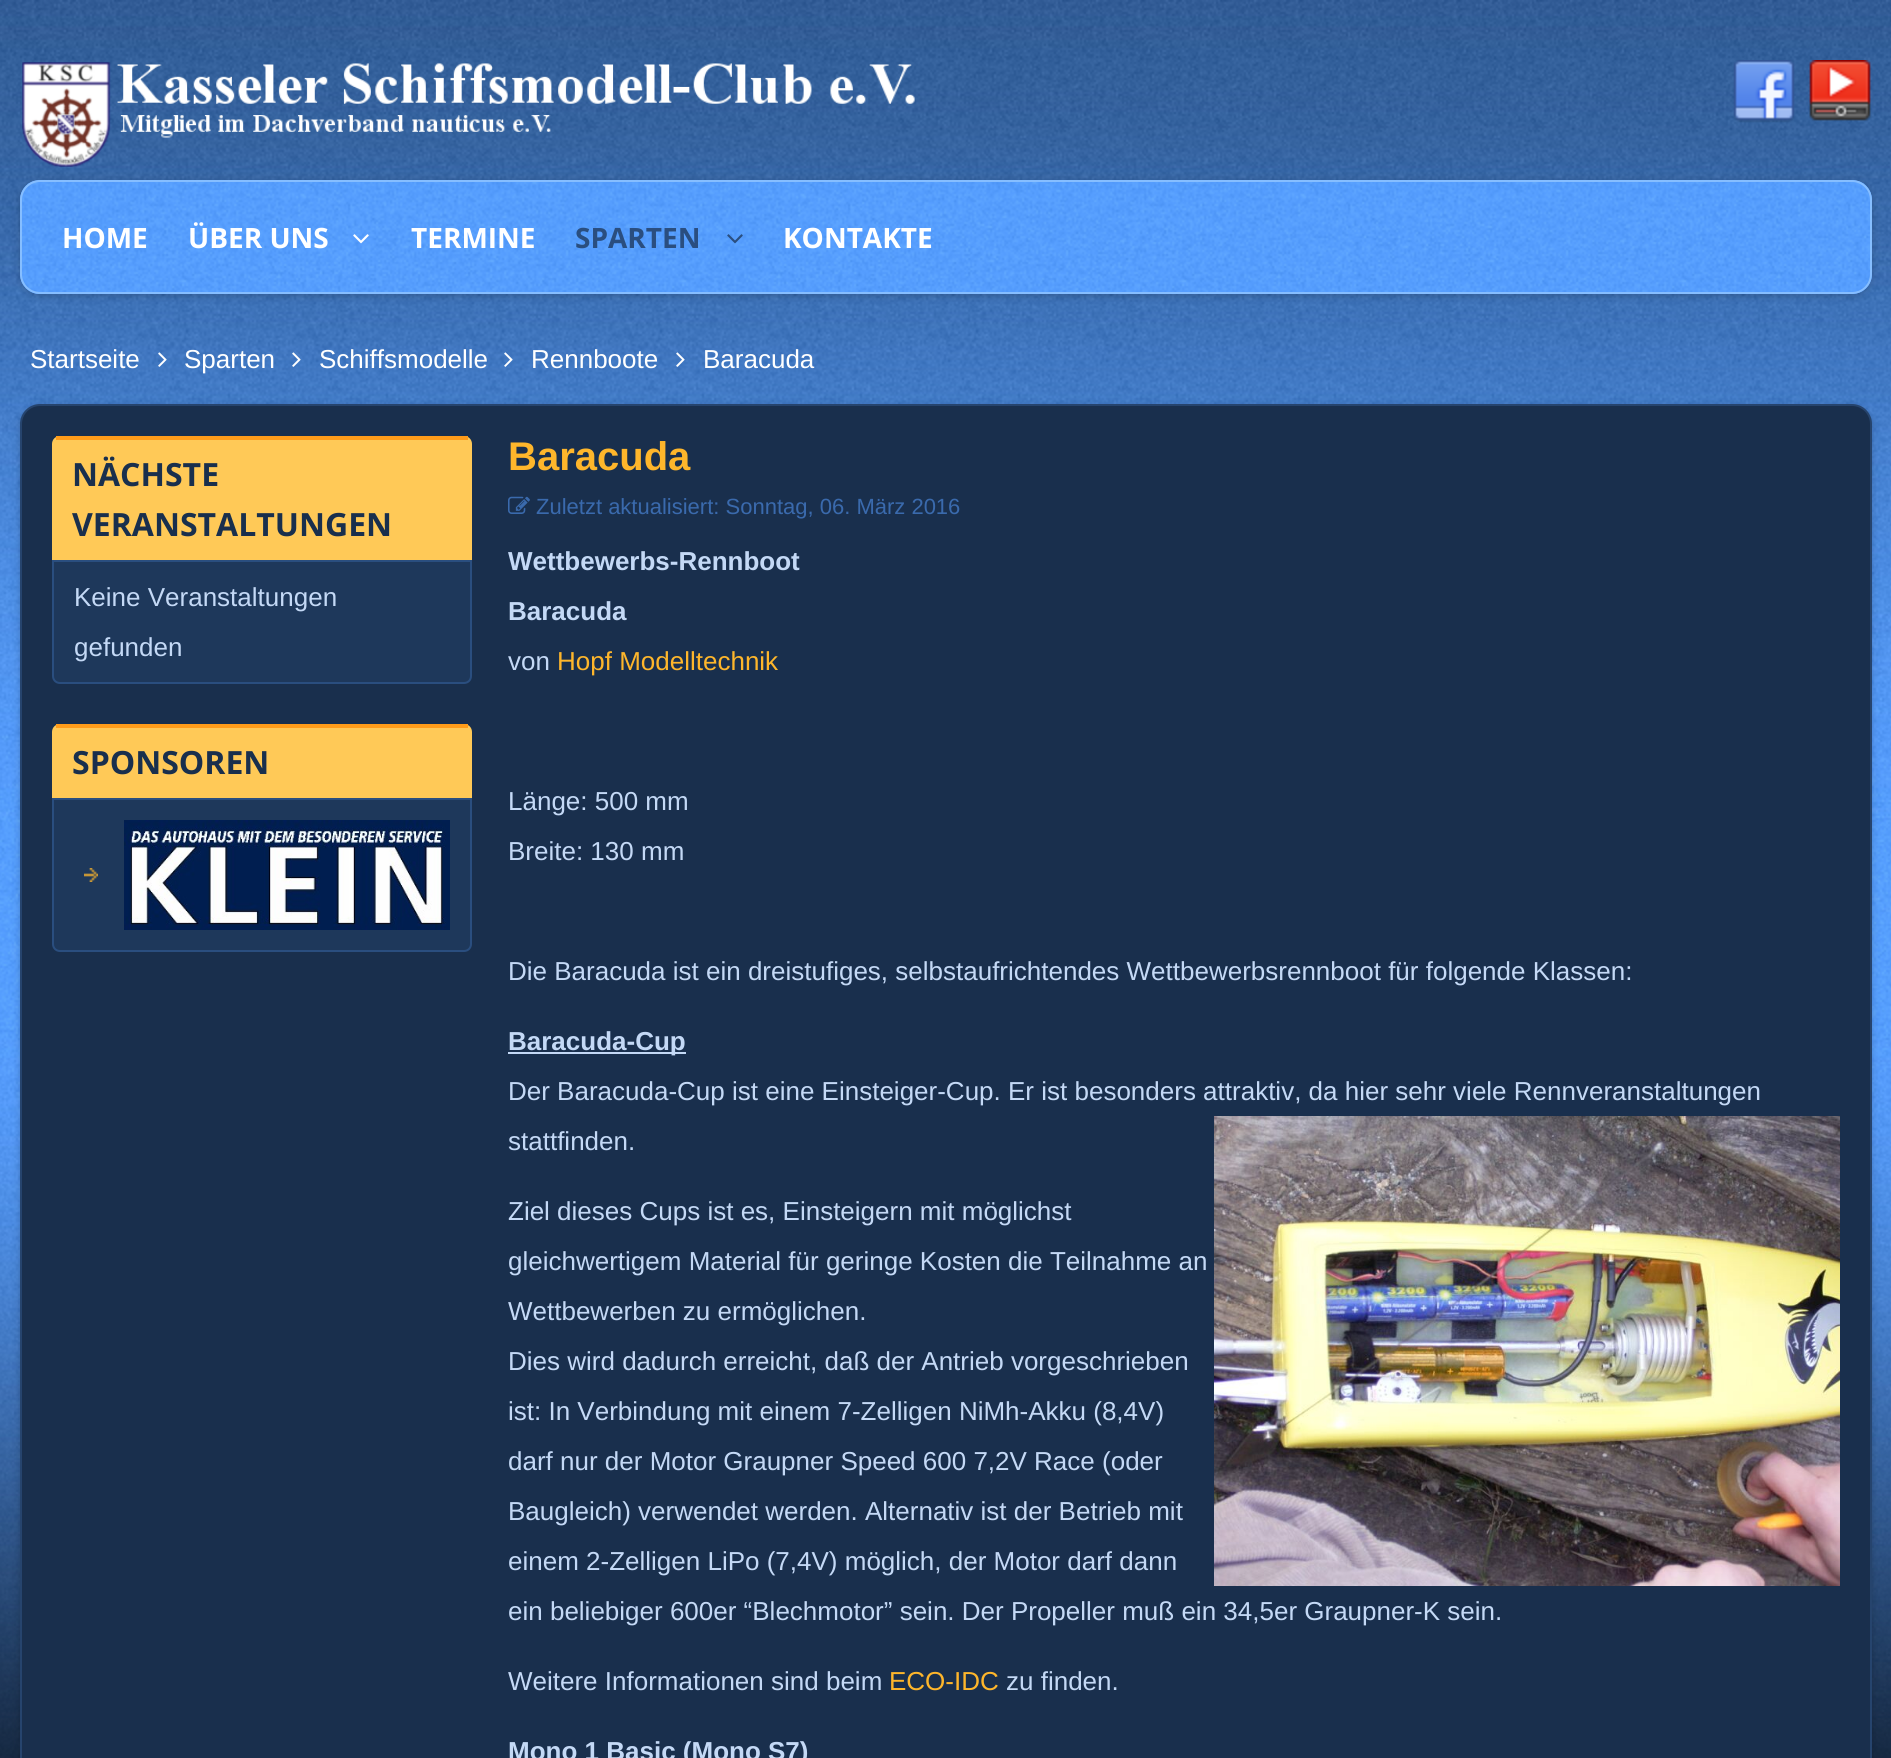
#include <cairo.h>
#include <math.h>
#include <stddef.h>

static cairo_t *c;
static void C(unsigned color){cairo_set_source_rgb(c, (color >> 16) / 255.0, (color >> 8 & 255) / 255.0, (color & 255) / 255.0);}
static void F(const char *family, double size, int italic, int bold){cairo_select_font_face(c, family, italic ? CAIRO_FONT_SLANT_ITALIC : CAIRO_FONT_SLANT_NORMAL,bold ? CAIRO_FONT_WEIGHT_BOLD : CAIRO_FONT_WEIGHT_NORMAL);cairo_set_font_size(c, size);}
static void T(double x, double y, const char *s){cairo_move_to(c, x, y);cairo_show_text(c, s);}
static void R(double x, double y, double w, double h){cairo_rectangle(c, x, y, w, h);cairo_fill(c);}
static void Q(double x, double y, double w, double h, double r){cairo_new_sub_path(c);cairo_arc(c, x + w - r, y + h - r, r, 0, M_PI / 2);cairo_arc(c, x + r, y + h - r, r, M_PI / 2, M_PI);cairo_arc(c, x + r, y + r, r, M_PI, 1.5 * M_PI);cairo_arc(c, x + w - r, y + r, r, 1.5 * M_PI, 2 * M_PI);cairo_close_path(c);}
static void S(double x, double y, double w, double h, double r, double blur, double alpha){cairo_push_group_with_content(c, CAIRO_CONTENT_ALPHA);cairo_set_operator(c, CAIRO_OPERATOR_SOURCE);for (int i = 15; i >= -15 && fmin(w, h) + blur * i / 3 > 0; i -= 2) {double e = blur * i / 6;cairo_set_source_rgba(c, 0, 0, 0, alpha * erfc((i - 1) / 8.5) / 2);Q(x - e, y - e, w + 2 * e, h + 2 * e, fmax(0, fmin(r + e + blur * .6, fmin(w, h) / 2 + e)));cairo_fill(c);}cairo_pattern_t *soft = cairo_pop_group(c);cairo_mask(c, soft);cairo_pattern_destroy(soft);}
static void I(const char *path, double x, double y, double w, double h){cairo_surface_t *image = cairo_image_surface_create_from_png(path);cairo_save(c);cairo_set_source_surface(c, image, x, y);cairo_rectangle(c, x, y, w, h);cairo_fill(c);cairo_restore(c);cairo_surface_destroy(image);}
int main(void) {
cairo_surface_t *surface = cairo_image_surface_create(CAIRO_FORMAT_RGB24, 1891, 1758);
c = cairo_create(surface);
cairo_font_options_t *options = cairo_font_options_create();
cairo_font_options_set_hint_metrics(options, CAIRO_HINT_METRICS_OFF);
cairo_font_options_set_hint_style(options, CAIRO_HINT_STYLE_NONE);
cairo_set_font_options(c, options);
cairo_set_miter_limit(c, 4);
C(0xffffff);
cairo_paint(c);
I("1.png",0,0,1891,1758);
I("2.png",22,62,893,105);
I("3.png",1733,60,62,63);
I("4.png",1809,60,62,61);
C(0x000000);
S(20,182,1852,114,20,4,.2);
I("5.png",20,180,1852,114);
Q(21,181,1850,112,19);
C(0x86beff);
cairo_stroke(c);
F("Open Sans",28,0,1);
C(0xffffff);
T(62,248,"HOME");
T(188,248,"ÜBER UNS");
I("6.png",353,234,16,10);
T(411,248,"TERMINE");
C(0x2a4e7f);
T(575,248,"SPARTEN");
I("7.png",727,234,16,10);
C(0xffffff);
T(783,248,"KONTAKTE");
F("Liberation Sans",26,0,0);
T(30,368,"Startseite");
I("8.png",158,352,9,15);
T(184,368,"Sparten");
I("9.png",292,352,9,15);
T(319,368,"Schiffsmodelle");
I("10.png",504,352,9,15);
T(531,368,"Rennboote");
I("11.png",676,352,9,15);
T(703,368,"Baracuda");
C(0x000000);
S(20,406,1852,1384,20,4,.2);
C(0x192f4d);
Q(21,405,1850,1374,19);
cairo_fill_preserve(c);
C(0x26446d);
cairo_stroke(c);
C(0xffc957);
cairo_new_path(c);
cairo_move_to(c,60,436);
cairo_line_to(c,464,436);
cairo_curve_to(c,468.5,436,472,439.5,472,444);
cairo_line_to(c,472,560);
cairo_line_to(c,52,560);
cairo_line_to(c,52,444);
cairo_curve_to(c,52,439.5,55.5,436,60,436);
cairo_close_path(c);
cairo_fill(c);
C(0xff9c1a);
R(56,436,412,4);
F("Open Sans",32,0,1);
C(0x192f4d);
T(72,486,"NÄCHSTE");
T(72,536,"VERANSTALTUNGEN");
C(0x1e385b);
cairo_new_path(c);
cairo_move_to(c,53,561);
cairo_line_to(c,471,561);
cairo_line_to(c,471,676);
cairo_curve_to(c,471,680,468,683,464,683);
cairo_line_to(c,60,683);
cairo_curve_to(c,56,683,53,680,53,676);
cairo_close_path(c);
cairo_fill_preserve(c);
C(0x2a4e7f);
cairo_stroke(c);
F("Liberation Sans",26,0,0);
C(0xc4d9f6);
T(74,606,"Keine Veranstaltungen");
T(74,656,"gefunden");
C(0xffc957);
cairo_new_path(c);
cairo_move_to(c,60,724);
cairo_line_to(c,464,724);
cairo_curve_to(c,468.5,724,472,727.5,472,732);
cairo_line_to(c,472,798);
cairo_line_to(c,52,798);
cairo_line_to(c,52,732);
cairo_curve_to(c,52,727.5,55.5,724,60,724);
cairo_close_path(c);
cairo_fill(c);
C(0xff9c1a);
R(56,724,412,4);
F("Open Sans",32,0,1);
C(0x192f4d);
T(72,774,"SPONSOREN");
C(0x1e385b);
cairo_new_path(c);
cairo_move_to(c,53,799);
cairo_line_to(c,471,799);
cairo_line_to(c,471,944);
cairo_curve_to(c,471,948,468,951,464,951);
cairo_line_to(c,60,951);
cairo_curve_to(c,56,951,53,948,53,944);
cairo_close_path(c);
cairo_fill_preserve(c);
C(0x2a4e7f);
cairo_stroke(c);
I("12.png",84,868,14,14);
I("13.png",124,820,326,110);
F("Liberation Sans",40,0,1);
C(0xfeb62b);
T(508,470,"Baracuda");
I("14.png",508,496,22,18);
F("Liberation Sans",22,0,0);
C(0x3a6aad);
T(536,514,"Zuletzt aktualisiert: Sonntag, 06. März 2016");
F("Liberation Sans",26,0,1);
C(0xc4d9f6);
T(508,570,"Wettbewerbs-Rennboot");
T(508,620,"Baracuda");
F("Liberation Sans",26,0,0);
T(508,670,"von");
C(0xfeb62b);
T(557,670,"Hopf Modelltechnik");
C(0xc4d9f6);
T(508,810,"Länge: 500 mm");
T(508,860,"Breite: 130 mm");
T(508,980,"Die Baracuda ist ein dreistufiges, selbstaufrichtendes Wettbewerbsrennboot für folgende Klassen:");
R(508,1052,178,2);
F("Liberation Sans",26,0,1);
T(508,1050,"Baracuda-Cup");
F("Liberation Sans",26,0,0);
T(508,1100,"Der Baracuda-Cup ist eine Einsteiger-Cup. Er ist besonders attraktiv, da hier sehr viele Rennveranstaltungen");
T(508,1150,"stattfinden.");
I("15.png",1214,1116,626,470);
T(508,1220,"Ziel dieses Cups ist es, Einsteigern mit möglichst");
T(508,1270,"gleichwertigem Material für geringe Kosten die Teilnahme an");
T(508,1320,"Wettbewerben zu ermöglichen.");
T(508,1370,"Dies wird dadurch erreicht, daß der Antrieb vorgeschrieben");
T(508,1420,"ist: In Verbindung mit einem 7-Zelligen NiMh-Akku (8,4V)");
T(508,1470,"darf nur der Motor Graupner Speed 600 7,2V Race (oder");
T(508,1520,"Baugleich) verwendet werden. Alternativ ist der Betrieb mit");
T(508,1570,"einem 2-Zelligen LiPo (7,4V) möglich, der Motor darf dann");
T(508,1620,"ein beliebiger 600er “Blechmotor” sein. Der Propeller muß ein 34,5er Graupner-K sein.");
T(508,1690,"Weitere Informationen sind beim");
C(0xfeb62b);
T(889,1690,"ECO-IDC");
C(0xc4d9f6);
T(1006,1690,"zu finden.");
F("Liberation Sans",26,0,1);
T(508,1760,"Mono 1 Basic (Mono S7)");
cairo_surface_write_to_png(surface, "o.png");
cairo_font_options_destroy(options);
cairo_destroy(c);
cairo_surface_destroy(surface);
return 0;
}
